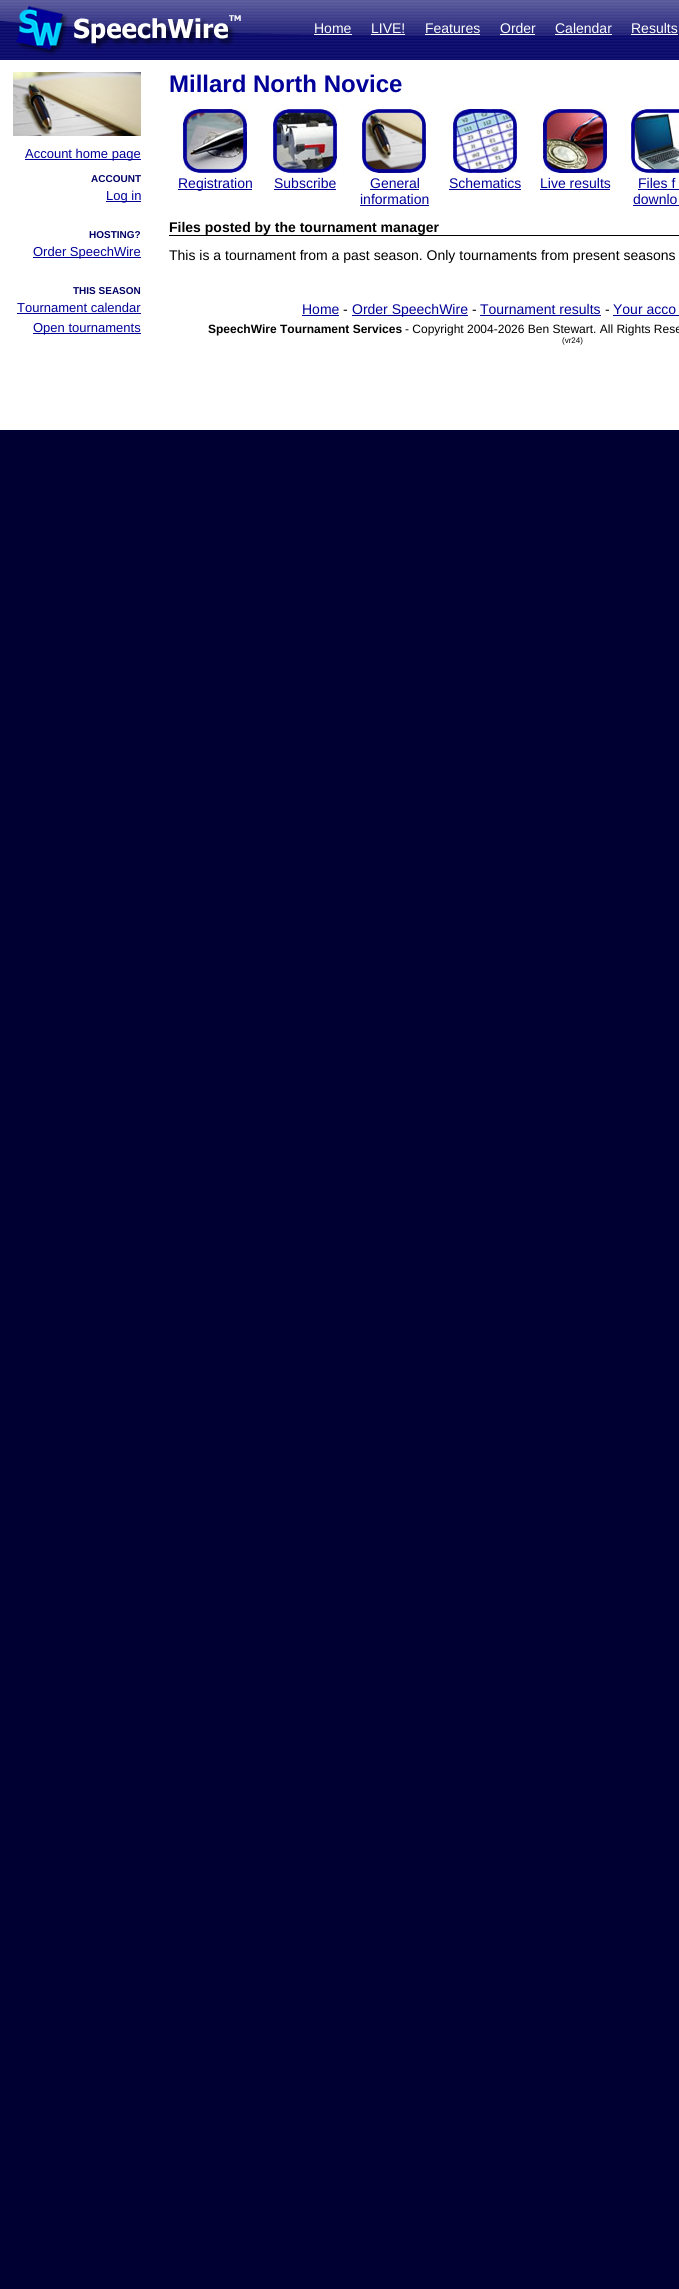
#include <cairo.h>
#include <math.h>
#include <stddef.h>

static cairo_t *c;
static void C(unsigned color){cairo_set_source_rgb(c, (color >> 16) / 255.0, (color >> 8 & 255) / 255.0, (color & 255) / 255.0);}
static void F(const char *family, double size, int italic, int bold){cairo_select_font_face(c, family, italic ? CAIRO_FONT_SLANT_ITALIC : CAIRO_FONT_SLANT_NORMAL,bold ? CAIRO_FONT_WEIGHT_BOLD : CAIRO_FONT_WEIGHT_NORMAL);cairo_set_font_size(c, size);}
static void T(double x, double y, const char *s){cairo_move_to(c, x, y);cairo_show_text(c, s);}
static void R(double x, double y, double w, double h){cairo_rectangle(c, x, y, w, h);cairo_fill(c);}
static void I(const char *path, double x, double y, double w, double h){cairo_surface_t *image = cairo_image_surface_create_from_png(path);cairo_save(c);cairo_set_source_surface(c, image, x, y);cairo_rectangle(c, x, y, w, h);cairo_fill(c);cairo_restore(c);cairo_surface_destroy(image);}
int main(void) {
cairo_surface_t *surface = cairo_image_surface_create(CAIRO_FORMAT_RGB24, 679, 2289);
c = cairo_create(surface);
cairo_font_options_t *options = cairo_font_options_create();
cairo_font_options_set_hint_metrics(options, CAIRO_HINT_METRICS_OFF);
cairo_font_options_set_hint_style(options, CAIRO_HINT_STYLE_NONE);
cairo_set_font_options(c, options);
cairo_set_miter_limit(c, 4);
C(0x000033);
cairo_paint(c);
I("1.png",0,0,245,60);
I("2.png",245,0,434,60);
F("Liberation Sans",14,0,0);
C(0xffffff);
T(314,33,"Home");
R(314,34,38,1);
T(371,33,"LIVE!");
R(371,34,34,1);
T(425,33,"Features");
R(425,34,55,1);
T(500,33,"Order");
R(500,34,35,1);
T(555,33,"Calendar");
R(555,34,57,1);
T(631,33,"Results");
R(631,34,47,1);
R(0,60,679,370);
I("3.png",13,72,128,64);
C(0x000099);
R(25,159,116,1);
F("Liberation Sans",13,0,0);
T(25,158,"Account home page");
F("Liberation Sans",10,0,1);
C(0x000066);
T(91,182,"ACCOUNT");
C(0x000099);
R(106,201,35,1);
F("Liberation Sans",13,0,0);
T(106,200,"Log in");
F("Liberation Sans",10,0,1);
C(0x000066);
T(89,238,"HOSTING?");
C(0x000099);
R(33,257,108,1);
F("Liberation Sans",13,0,0);
T(33,256,"Order SpeechWire");
F("Liberation Sans",10,0,1);
C(0x000066);
T(73,294,"THIS SEASON");
F("Liberation Sans",13,0,0);
C(0x000099);
T(17,312,"Tournament calendar");
R(17,313,124,1);
R(33,333,108,1);
T(33,332,"Open tournaments");
F("Liberation Sans",24,0,1);
T(169,92,"Millard North Novice");
I("4.png",183,109,64,64);
I("5.png",273,109,64,64);
I("6.png",362,109,64,64);
I("7.png",453,109,64,64);
I("8.png",543,109,64,64);
I("9.png",631,109,48,64);
R(178,189,74,1);
F("Liberation Sans",14,0,0);
T(178,188,"Registration");
T(274,188,"Subscribe");
R(274,189,62,1);
T(370,188,"General");
R(370,189,49,1);
T(360,204,"information");
R(360,205,69,1);
T(449,188,"Schematics");
R(449,189,72,1);
T(540,188,"Live results");
R(540,189,70,1);
T(638,188,"Files f");
R(638,189,41,1);
T(633,204,"downlo");
R(633,205,46,1);
C(0x000000);
R(169,235,510,1);
F("Liberation Sans",14,0,1);
T(169,232,"Files posted by the tournament manager");
F("Liberation Sans",14,0,0);
T(169,260,"This is a tournament from a past season. Only tournaments from present seasons");
C(0x000099);
T(302,314,"Home");
R(302,315,37,1);
C(0x000000);
T(343,314,"-");
C(0x000099);
R(352,315,116,1);
T(352,314,"Order SpeechWire");
C(0x000000);
T(472,314,"-");
C(0x000099);
T(480,314,"Tournament results");
R(480,315,121,1);
C(0x000000);
T(605,314,"-");
C(0x000099);
T(613,314,"Your acco");
R(613,315,66,1);
F("Liberation Sans",12,0,1);
C(0x000000);
T(208,333,"SpeechWire Tournament Services");
F("Liberation Sans",12,0,0);
T(405,333,"- Copyright 2004-2026 Ben Stewart. All Rights Rese");
F("Liberation Sans",8,0,0);
T(562,343,"(vr24)");
cairo_surface_write_to_png(surface, "o.png");
cairo_font_options_destroy(options);
cairo_destroy(c);
cairo_surface_destroy(surface);
return 0;
}
